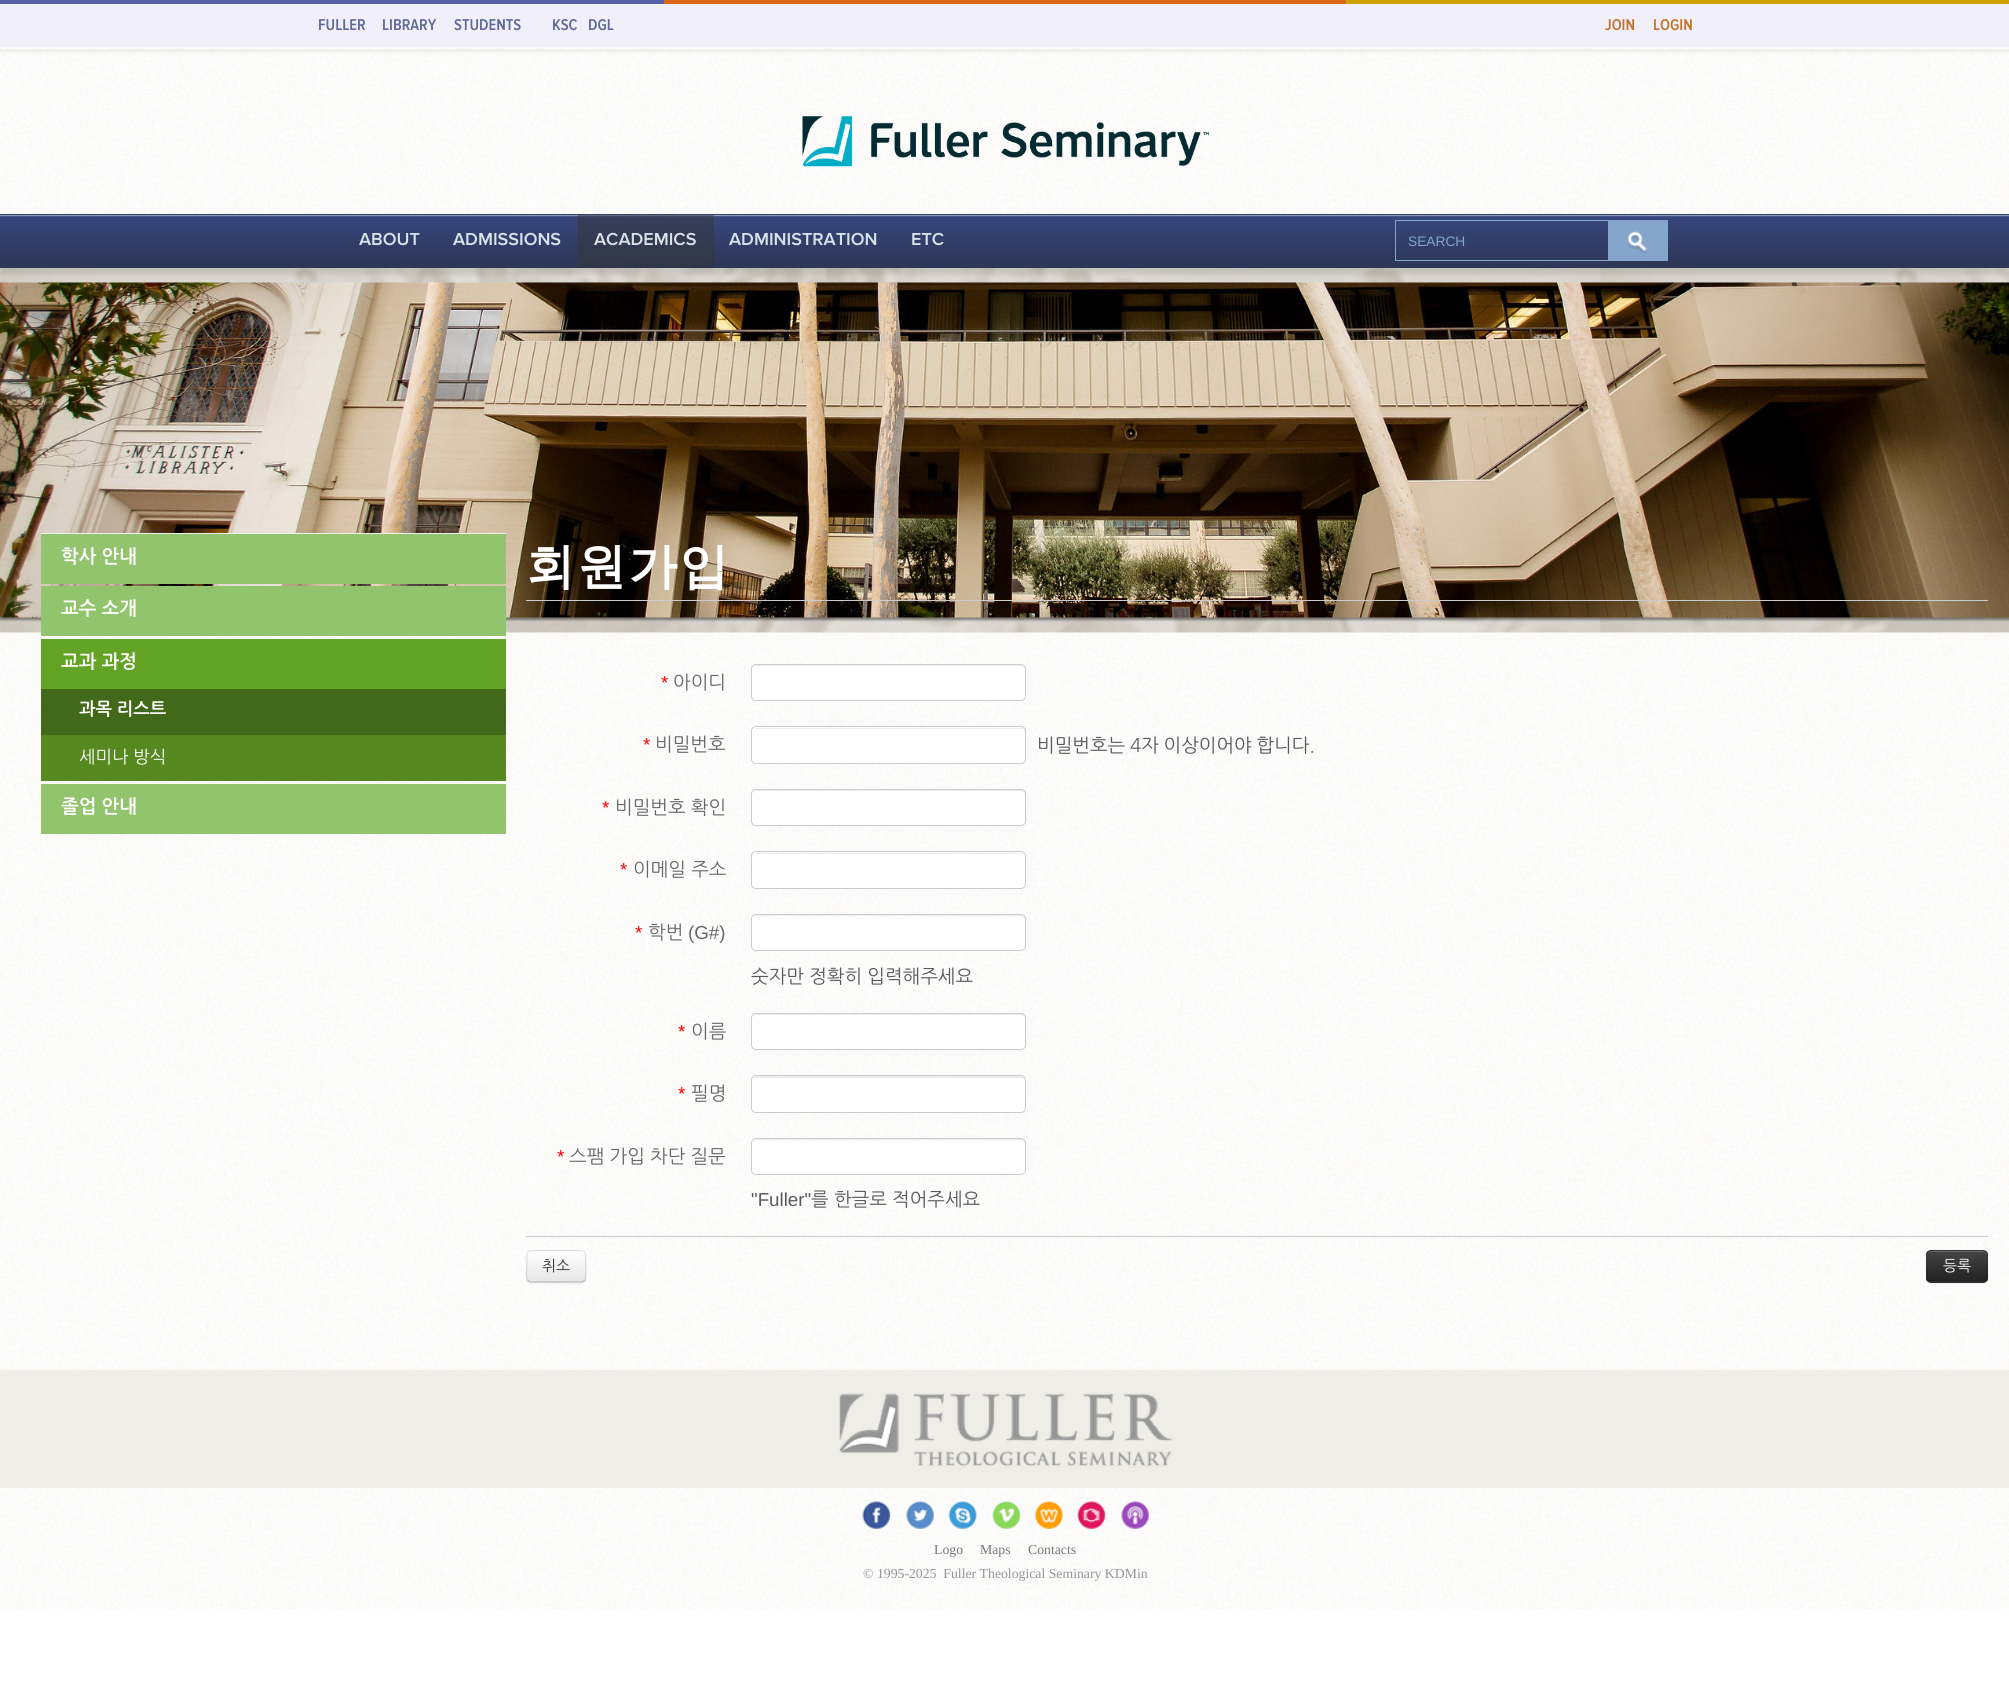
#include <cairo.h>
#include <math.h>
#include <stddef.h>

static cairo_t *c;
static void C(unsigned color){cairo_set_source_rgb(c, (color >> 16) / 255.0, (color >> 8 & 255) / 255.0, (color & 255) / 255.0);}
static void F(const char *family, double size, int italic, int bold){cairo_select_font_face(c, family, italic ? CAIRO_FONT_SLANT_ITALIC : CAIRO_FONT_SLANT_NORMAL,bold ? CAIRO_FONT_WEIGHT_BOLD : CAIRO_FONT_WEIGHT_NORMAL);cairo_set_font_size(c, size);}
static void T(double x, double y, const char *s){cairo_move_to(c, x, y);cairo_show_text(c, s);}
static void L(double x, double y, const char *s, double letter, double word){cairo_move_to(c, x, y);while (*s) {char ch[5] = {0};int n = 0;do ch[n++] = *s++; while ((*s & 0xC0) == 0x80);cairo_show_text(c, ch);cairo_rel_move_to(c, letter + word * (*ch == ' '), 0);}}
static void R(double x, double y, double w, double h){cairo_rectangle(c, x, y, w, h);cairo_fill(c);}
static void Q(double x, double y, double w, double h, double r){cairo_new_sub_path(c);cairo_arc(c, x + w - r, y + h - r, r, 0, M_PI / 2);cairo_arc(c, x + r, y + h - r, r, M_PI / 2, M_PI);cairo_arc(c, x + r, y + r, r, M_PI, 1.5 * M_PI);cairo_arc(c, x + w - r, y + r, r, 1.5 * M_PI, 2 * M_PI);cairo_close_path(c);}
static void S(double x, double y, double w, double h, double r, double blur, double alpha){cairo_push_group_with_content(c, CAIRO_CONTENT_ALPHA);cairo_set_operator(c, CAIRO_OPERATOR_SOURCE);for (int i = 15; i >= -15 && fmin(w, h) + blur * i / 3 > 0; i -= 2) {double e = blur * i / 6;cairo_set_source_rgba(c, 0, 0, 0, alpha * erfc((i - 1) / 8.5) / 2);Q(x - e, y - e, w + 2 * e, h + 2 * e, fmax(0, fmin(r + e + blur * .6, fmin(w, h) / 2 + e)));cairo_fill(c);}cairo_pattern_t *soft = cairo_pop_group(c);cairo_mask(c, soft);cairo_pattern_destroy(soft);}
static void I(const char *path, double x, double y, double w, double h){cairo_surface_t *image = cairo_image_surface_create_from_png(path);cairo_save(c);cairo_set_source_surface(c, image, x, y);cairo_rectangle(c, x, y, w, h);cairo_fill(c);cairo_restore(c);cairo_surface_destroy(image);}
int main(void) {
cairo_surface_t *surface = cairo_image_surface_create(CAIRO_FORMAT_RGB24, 2009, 1705);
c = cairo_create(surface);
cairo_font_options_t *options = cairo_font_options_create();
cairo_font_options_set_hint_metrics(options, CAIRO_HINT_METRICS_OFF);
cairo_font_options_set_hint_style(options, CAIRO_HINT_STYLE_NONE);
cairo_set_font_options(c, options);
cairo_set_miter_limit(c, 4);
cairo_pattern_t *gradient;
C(0xffffff);
cairo_paint(c);
I("1.png",0,52,2009,1557);
C(0x5562a8);
R(0,0,664,4);
C(0xdb661a);
R(664,0,682,4);
C(0xcea000);
R(1346,0,663,4);
C(0xf0effa);
R(0,4,2009,44);
F("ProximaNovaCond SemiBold",16.25,0,0);
C(0x5f6896);
T(318,30,"FULLER");
T(382,30,"LIBRARY");
T(454,30,"STUDENTS");
T(552,30,"KSC");
T(588,30,"DGL");
C(0xc47529);
T(1605,30,"JOIN");
T(1653,30,"LOGIN");
C(0xeeebe6);
R(0,51,2009,1);
I("2.png",0,47,2009,5);
I("3.png",802,116,407,51);
I("6.png",0,268,2009,365);
C(0x000000);
S(0,285,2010,335,0,1,.4);
I("7.png",0,282,2009,336);
S(0,221,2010,54,0,2.5,.1);
gradient = cairo_pattern_create_linear(1005,214,1005,268);
cairo_pattern_add_color_stop_rgba(gradient,0,1,1,1,1);
cairo_pattern_add_color_stop_rgba(gradient,.05,0.216,0.275,0.49,1);
cairo_pattern_add_color_stop_rgba(gradient,1,0.176,0.212,0.333,1);
cairo_set_source(c,gradient);
cairo_pattern_destroy(gradient);
R(0,215,2009,53);
C(0x344273);
R(0,214,2009,1);
F("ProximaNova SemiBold",18,0,0);
C(0xd7e3eb);
T(359,245,"ABOUT");
T(453,245,"ADMISSIONS");
I("4.png",577,215,137,53);
T(594,245,"ACADEMICS");
T(729,245,"ADMINISTRATION");
T(911,245,"ETC");
cairo_rectangle(c,1395.5,220.5,250,40);
C(0x85a5cc);
cairo_set_line_width(c,1);
cairo_stroke(c);
F("Liberation Sans",13.75,0,0);
T(1408,246,"SEARCH");
R(1608,220,60,41);
I("5.png",1627,231,20,23);
C(0xeeeeee);
R(41,533,465,1);
C(0x91c46c);
R(41,534,465,50);
F("NanumGothic",18.75,0,1);
C(0xffffff);
T(61,563,"학사 안내");
C(0x91c46c);
R(41,586,465,50);
C(0xffffff);
T(61,615,"교수 소개");
C(0x63a325);
R(41,639,465,50);
C(0xffffff);
T(61,668,"교과 과정");
C(0x426919);
R(41,689,465,46);
F("NanumGothic",17.5,0,1);
C(0xffffff);
T(79,715,"과목 리스트");
C(0x56891f);
R(41,735,465,46);
F("NanumGothic",17.5,0,0);
C(0xffffff);
T(79,763,"세미나 방식");
C(0x91c46c);
R(41,784,465,50);
F("NanumGothic",18.75,0,1);
C(0xffffff);
T(61,813,"졸업 안내");
C(0xcccccc);
R(526,600,1462,1);
F("WenQuanYi Zen Hei",48.75,0,1);
C(0xffffff);
L(526,583,"회원가입",2.5,0);
F("Liberation Sans",18.75,0,0);
C(0xff0000);
T(661,689,"*");
F("NanumGothic",18.75,0,0);
C(0x676767);
T(673,689,"아이디");
C(0xffffff);
Q(751,664,275,37,5);
cairo_fill(c);
C(0xececec);
cairo_new_path(c);
cairo_move_to(c,756,666);
cairo_line_to(c,1021,666);
cairo_curve_to(c,1023,666,1025,668,1025,670);
cairo_line_to(c,1025,669);
cairo_curve_to(c,1025,667,1023,665,1021,665);
cairo_line_to(c,757,665);
cairo_curve_to(c,756,665,754,666,754,667);
cairo_close_path(c);
cairo_fill(c);
Q(751.5,664.5,274,36,4.5);
C(0xcccccc);
cairo_stroke(c);
F("Liberation Sans",18.75,0,0);
C(0xff0000);
T(643,751,"*");
F("NanumGothic",18.75,0,0);
C(0x676767);
T(655,751,"비밀번호");
C(0xffffff);
Q(751,726,275,38,5);
cairo_fill(c);
C(0xececec);
cairo_new_path(c);
cairo_move_to(c,756,729);
cairo_line_to(c,1022,729);
cairo_line_to(c,1025,731);
cairo_line_to(c,1025,732);
cairo_curve_to(c,1025,730,1023,728,1021,728);
cairo_line_to(c,757,728);
cairo_curve_to(c,756,728,755,729,754,729);
cairo_close_path(c);
cairo_fill(c);
Q(751.5,726.5,274,37,4.5);
C(0xcccccc);
cairo_stroke(c);
C(0x595959);
L(1037,752,"비밀번호는 4자 이상이어야 합니다.",0,-.5);
F("Liberation Sans",18.75,0,0);
C(0xff0000);
T(602,814,"*");
F("NanumGothic",18.75,0,0);
C(0x676767);
T(615,814,"비밀번호 확인");
C(0xffffff);
Q(751,789,275,37,5);
cairo_fill(c);
C(0xececec);
cairo_new_path(c);
cairo_move_to(c,756,791);
cairo_line_to(c,1021,791);
cairo_curve_to(c,1023,791,1025,793,1025,795);
cairo_line_to(c,1025,794);
cairo_curve_to(c,1025,792,1023,790,1021,790);
cairo_line_to(c,757,790);
cairo_curve_to(c,756,790,754,791,754,792);
cairo_close_path(c);
cairo_fill(c);
Q(751.5,789.5,274,36,4.5);
C(0xcccccc);
cairo_stroke(c);
F("Liberation Sans",18.75,0,0);
C(0xff0000);
T(620,876,"*");
F("NanumGothic",18.75,0,0);
C(0x676767);
T(633,876,"이메일 주소");
C(0xffffff);
Q(751,851,275,38,5);
cairo_fill(c);
C(0xececec);
cairo_new_path(c);
cairo_move_to(c,756,854);
cairo_line_to(c,1021,854);
cairo_curve_to(c,1023,854,1025,855,1025,858);
cairo_curve_to(c,1025,855,1024,853,1021,853);
cairo_line_to(c,757,853);
cairo_line_to(c,754,854);
cairo_close_path(c);
cairo_fill(c);
Q(751.5,851.5,274,37,4.5);
C(0xcccccc);
cairo_stroke(c);
F("Liberation Sans",18.75,0,0);
C(0xff0000);
T(635,939,"*");
F("NanumGothic",18.75,0,0);
C(0x676767);
T(648,939,"학번");
F("Liberation Sans",18.75,0,0);
T(688,939,"(G#)");
C(0xffffff);
Q(751,914,275,37,5);
cairo_fill(c);
C(0xececec);
cairo_new_path(c);
cairo_move_to(c,756,916);
cairo_line_to(c,1021,916);
cairo_curve_to(c,1023,916,1025,918,1025,920);
cairo_line_to(c,1025,919);
cairo_curve_to(c,1025,917,1023,915,1021,915);
cairo_line_to(c,757,915);
cairo_curve_to(c,756,915,754,916,754,917);
cairo_close_path(c);
cairo_fill(c);
Q(751.5,914.5,274,36,4.5);
C(0xcccccc);
cairo_stroke(c);
F("NanumGothic",18.75,0,0);
C(0x595959);
T(751,983,"숫자만 정확히 입력해주세요");
F("Liberation Sans",18.75,0,0);
C(0xff0000);
T(678,1038,"*");
F("NanumGothic",18.75,0,0);
C(0x676767);
T(691,1038,"이름");
C(0xffffff);
Q(751,1013,275,37,5);
cairo_fill(c);
C(0xececec);
cairo_new_path(c);
cairo_move_to(c,756,1015);
cairo_line_to(c,1021,1015);
cairo_curve_to(c,1023,1015,1025,1017,1025,1019);
cairo_line_to(c,1025,1018);
cairo_curve_to(c,1025,1016,1023,1014,1021,1014);
cairo_line_to(c,757,1014);
cairo_curve_to(c,756,1014,754,1015,754,1016);
cairo_close_path(c);
cairo_fill(c);
Q(751.5,1013.5,274,36,4.5);
C(0xcccccc);
cairo_stroke(c);
F("Liberation Sans",18.75,0,0);
C(0xff0000);
T(678,1100,"*");
F("NanumGothic",18.75,0,0);
C(0x676767);
T(691,1100,"필명");
C(0xffffff);
Q(751,1075,275,38,5);
cairo_fill(c);
C(0xececec);
cairo_new_path(c);
cairo_move_to(c,756,1078);
cairo_line_to(c,1022,1078);
cairo_line_to(c,1025,1080);
cairo_line_to(c,1025,1081);
cairo_line_to(c,1025,1080);
cairo_curve_to(c,1025,1078,1023,1076,1021,1076);
cairo_line_to(c,757,1076);
cairo_curve_to(c,755,1076,754,1077,753,1079);
cairo_close_path(c);
cairo_fill(c);
Q(751.5,1075.5,274,37,4.5);
C(0xcccccc);
cairo_stroke(c);
F("Liberation Sans",18.75,0,0);
C(0xff0000);
T(557,1163,"*");
F("NanumGothic",18.75,0,0);
C(0x676767);
T(569,1163,"스팸 가입 차단 질문");
C(0xffffff);
Q(751,1138,275,37,5);
cairo_fill(c);
C(0xececec);
cairo_new_path(c);
cairo_move_to(c,756,1140);
cairo_line_to(c,1021,1140);
cairo_curve_to(c,1023,1140,1025,1142,1025,1144);
cairo_line_to(c,1025,1143);
cairo_curve_to(c,1025,1141,1023,1139,1021,1139);
cairo_line_to(c,757,1139);
cairo_curve_to(c,756,1139,754,1140,754,1141);
cairo_close_path(c);
cairo_fill(c);
Q(751.5,1138.5,274,36,4.5);
C(0xcccccc);
cairo_stroke(c);
F("Liberation Sans",18.75,0,0);
C(0x595959);
T(751,1206,"\"Fuller\"");
F("NanumGothic",18.75,0,0);
T(811,1206,"를 한글로 적어주세요");
C(0xcccccc);
R(526,1236,1462,1);
C(0x000000);
S(526,1251,60,33,5,1,.05);
C(0xf5f5f5);
Q(526,1250,60,33,5);
cairo_fill(c);
cairo_save(c);
Q(526,1250,60,33,5);
cairo_clip(c);
gradient = cairo_pattern_create_linear(556,1251,556,1281);
cairo_pattern_add_color_stop_rgba(gradient,0,1,1,1,1);
cairo_pattern_add_color_stop_rgba(gradient,1,0.902,0.902,0.902,1);
cairo_set_source(c,gradient);
cairo_pattern_destroy(gradient);
R(526,1251,60,30);
cairo_restore(c);
C(0xffffff);
cairo_new_path(c);
cairo_move_to(c,531,1252);
cairo_line_to(c,581,1252);
cairo_curve_to(c,583,1252,585,1254,585,1256);
cairo_curve_to(c,585,1249,578,1251,573,1251);
cairo_line_to(c,540,1251);
cairo_curve_to(c,535,1251,528,1249,528,1256);
cairo_curve_to(c,528,1254,529,1252,531,1252);
cairo_close_path(c);
cairo_fill(c);
cairo_new_path(c);
cairo_move_to(c,584.5,1280.5);
cairo_curve_to(c,583.5,1281.5,582.5,1282,581,1282);
cairo_line_to(c,531,1282);
cairo_curve_to(c,530,1282,529,1281.5,528,1280.5);
C(0xb3b3b3);
cairo_set_line_width(c,1.2);
cairo_stroke(c);
cairo_new_path(c);
cairo_move_to(c,528,1280.5);
cairo_curve_to(c,525.5,1278,527,1269.5,527,1266);
cairo_curve_to(c,527,1250.5,524.5,1250.5,539.5,1250.5);
cairo_line_to(c,573,1250.5);
cairo_curve_to(c,588,1250.5,585.5,1250.5,585.5,1266);
cairo_curve_to(c,585.5,1269.5,587,1278,584.5,1280.5);
cairo_set_source_rgba(c,0,0,0,0.1);
cairo_stroke(c);
F("NanumGothic",15,0,0);
C(0x333333);
T(542,1271,"취소");
C(0x000000);
S(1926,1251,62,33,5,1,.05);
C(0x363636);
Q(1926,1250,62,33,5);
cairo_fill(c);
cairo_save(c);
Q(1926,1250,62,33,5);
cairo_clip(c);
gradient = cairo_pattern_create_linear(1957,1251,1957,1281);
cairo_pattern_add_color_stop_rgba(gradient,0,0.267,0.267,0.267,1);
cairo_pattern_add_color_stop_rgba(gradient,1,0.133,0.133,0.133,1);
cairo_set_source(c,gradient);
cairo_pattern_destroy(gradient);
R(1926,1251,62,30);
cairo_restore(c);
C(0x696969);
cairo_new_path(c);
cairo_move_to(c,1931,1252);
cairo_line_to(c,1982,1252);
cairo_curve_to(c,1985,1252,1986,1254,1986,1256);
cairo_curve_to(c,1986,1249,1979,1251,1974,1251);
cairo_line_to(c,1940,1251);
cairo_curve_to(c,1935,1251,1928,1249,1928,1256);
cairo_curve_to(c,1928,1254,1929,1252,1931,1252);
cairo_close_path(c);
cairo_fill(c);
cairo_new_path(c);
cairo_move_to(c,1985.5,1280.5);
cairo_curve_to(c,1985,1281.5,1983.5,1282,1982.5,1282);
cairo_line_to(c,1931,1282);
cairo_curve_to(c,1930,1282,1929,1281.5,1928,1280.5);
cairo_set_source_rgba(c,0,0,0,0.25);
cairo_stroke(c);
cairo_new_path(c);
cairo_move_to(c,1928,1280.5);
cairo_curve_to(c,1925.5,1278,1927,1269.5,1927,1266);
cairo_curve_to(c,1927,1250.5,1924.5,1250.5,1940,1250.5);
cairo_line_to(c,1974,1250.5);
cairo_curve_to(c,1989.5,1250.5,1987,1250.5,1987,1266);
cairo_curve_to(c,1987,1269.5,1988,1278,1985.5,1280.5);
cairo_set_source_rgba(c,0,0,0,0.1);
cairo_stroke(c);
C(0xffffff);
T(1943,1271,"등록");
C(0xefede8);
R(0,1370,2009,118);
I("8.png",838,1393,335,74);
I("9.png",861,1500,30,30);
I("10.png",905,1500,30,30);
I("11.png",948,1500,29,30);
I("12.png",991,1500,30,30);
I("13.png",1034,1500,30,30);
I("14.png",1076,1500,30,30);
I("15.png",1120,1500,30,30);
F("Liberation Serif",13.75,0,0);
C(0x777777);
T(934,1554,"Logo");
T(980,1554,"Maps");
T(1028,1554,"Contacts");
C(0x959595);
T(863,1578,"© 1995-2025  Fuller Theological Seminary KDMin");
cairo_surface_write_to_png(surface, "o.png");
cairo_font_options_destroy(options);
cairo_destroy(c);
cairo_surface_destroy(surface);
return 0;
}
